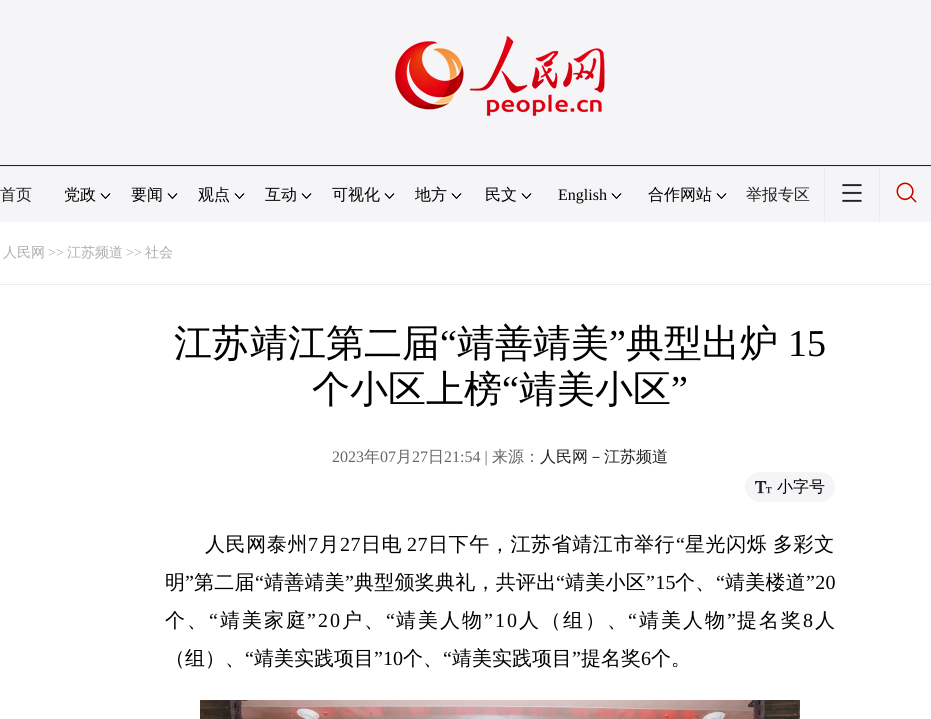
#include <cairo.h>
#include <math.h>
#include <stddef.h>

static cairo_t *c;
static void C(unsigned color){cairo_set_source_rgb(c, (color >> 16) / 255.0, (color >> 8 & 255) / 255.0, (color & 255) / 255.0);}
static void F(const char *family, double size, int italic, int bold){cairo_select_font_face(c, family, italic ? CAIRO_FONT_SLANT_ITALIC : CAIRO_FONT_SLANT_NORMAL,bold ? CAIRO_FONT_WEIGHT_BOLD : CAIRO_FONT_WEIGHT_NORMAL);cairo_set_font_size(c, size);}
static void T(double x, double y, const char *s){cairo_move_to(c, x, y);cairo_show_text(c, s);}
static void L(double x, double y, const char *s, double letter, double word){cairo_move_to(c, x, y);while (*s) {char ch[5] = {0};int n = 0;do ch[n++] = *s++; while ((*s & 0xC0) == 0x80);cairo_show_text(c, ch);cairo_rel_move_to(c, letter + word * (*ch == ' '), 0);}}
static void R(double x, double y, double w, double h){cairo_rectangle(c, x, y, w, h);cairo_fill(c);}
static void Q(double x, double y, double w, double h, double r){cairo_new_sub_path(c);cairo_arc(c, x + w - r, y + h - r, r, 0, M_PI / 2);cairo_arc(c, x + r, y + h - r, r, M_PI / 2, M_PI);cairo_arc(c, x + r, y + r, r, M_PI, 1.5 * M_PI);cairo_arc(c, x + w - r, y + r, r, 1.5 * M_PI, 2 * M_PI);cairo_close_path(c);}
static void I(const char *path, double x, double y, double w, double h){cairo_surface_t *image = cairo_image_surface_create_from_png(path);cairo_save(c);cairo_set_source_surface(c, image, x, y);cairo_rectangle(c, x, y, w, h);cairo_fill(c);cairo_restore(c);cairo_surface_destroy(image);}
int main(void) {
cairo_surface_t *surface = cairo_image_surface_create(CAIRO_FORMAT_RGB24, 931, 719);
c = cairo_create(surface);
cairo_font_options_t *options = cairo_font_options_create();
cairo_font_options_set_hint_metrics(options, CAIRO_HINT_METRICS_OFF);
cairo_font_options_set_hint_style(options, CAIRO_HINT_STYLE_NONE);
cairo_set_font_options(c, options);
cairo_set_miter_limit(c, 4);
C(0xffffff);
cairo_paint(c);
C(0xf5f5f7);
R(0,0,931,165);
C(0x212121);
R(0,165,931,1);
I("1.png",395,36,210,80);
C(0xe9e9e9);
R(0,166,931,1);
C(0xf5f5f7);
R(0,167,931,55);
F("WenQuanYi Zen Hei Medium",16,0,0);
C(0x212121);
T(0,200,"首页");
C(0x000000);
T(64,200,"党政");
I("2.png",100,193,11,6);
T(131,200,"要闻");
I("2.png",167,193,11,6);
T(198,200,"观点");
I("2.png",234,193,11,6);
T(265,200,"互动");
I("2.png",301,193,11,6);
T(332,200,"可视化");
I("2.png",384,193,11,6);
T(415,200,"地方");
I("2.png",451,193,11,6);
T(485,200,"民文");
I("2.png",521,193,11,6);
F("Liberation Serif",16,0,0);
T(558,200,"English");
I("2.png",611,193,11,6);
F("WenQuanYi Zen Hei Medium",16,0,0);
T(648,200,"合作网站");
I("2.png",716,193,11,6);
C(0x212121);
T(746,200,"举报专区");
C(0xebebed);
R(879,167,1,55);
R(824,167,1,55);
I("3.png",842,184,20,18);
I("4.png",896,182,22,22);
C(0xececec);
R(0,284,931,1);
F("WenQuanYi Zen Hei Medium",14,0,0);
C(0xadadad);
T(3,257,"人民网");
F("Liberation Serif",14,0,0);
T(48,257,">>");
F("WenQuanYi Zen Hei Medium",14,0,0);
T(67,257,"江苏频道");
F("Liberation Serif",14,0,0);
T(126,257,">>");
F("WenQuanYi Zen Hei Medium",14,0,0);
T(145,257,"社会");
F("WenQuanYi Zen Hei Medium",38,0,0);
C(0x000000);
T(174,356,"江苏靖江第二届");
F("Liberation Serif",38,0,0);
T(440,356,"“");
F("WenQuanYi Zen Hei Medium",38,0,0);
T(457,356,"靖善靖美");
F("Liberation Serif",38,0,0);
T(609,356,"”");
F("WenQuanYi Zen Hei Medium",38,0,0);
T(626,356,"典型出炉");
F("Liberation Serif",38,0,0);
T(788,356,"15");
F("WenQuanYi Zen Hei Medium",38,0,0);
T(312,402,"个小区上榜");
F("Liberation Serif",38,0,0);
T(502,402,"“");
F("WenQuanYi Zen Hei Medium",38,0,0);
T(519,402,"靖美小区");
F("Liberation Serif",38,0,0);
T(671,402,"”");
F("Liberation Serif",16,0,0);
C(0x666666);
T(332,462,"2023");
F("WenQuanYi Zen Hei Medium",16,0,0);
T(364,462,"年");
F("Liberation Serif",16,0,0);
T(380,462,"07");
F("WenQuanYi Zen Hei Medium",16,0,0);
T(396,462,"月");
F("Liberation Serif",16,0,0);
T(412,462,"27");
F("WenQuanYi Zen Hei Medium",16,0,0);
T(428,462,"日");
F("Liberation Serif",16,0,0);
T(444,462,"21:54 |");
F("WenQuanYi Zen Hei Medium",16,0,0);
T(492,462,"来源：");
C(0x212121);
T(540,462,"人民网－江苏频道");
C(0xf5f5f7);
Q(745,472,90,30,15);
cairo_fill(c);
I("5.png",755,481,17,13);
C(0x000000);
T(777,492,"小字号");
F("WenQuanYi Zen Hei Medium",20,0,0);
L(205,551,"人民网泰州",.6,0);
F("Liberation Serif",20,0,0);
L(308,551,"7",.6,0);
F("WenQuanYi Zen Hei Medium",20,0,0);
L(319,551,"月",.6,0);
F("Liberation Serif",20,0,0);
L(340,551,"27",.6,0);
F("WenQuanYi Zen Hei Medium",20,0,0);
L(361,551,"日电",.6,0);
F("Liberation Serif",20,0,0);
L(407,551,"27",.6,0);
F("WenQuanYi Zen Hei Medium",20,0,0);
L(428,551,"日下午，江苏省靖江市举行",.6,0);
F("Liberation Serif",20,0,0);
L(676,551,"“",.6,0);
F("WenQuanYi Zen Hei Medium",20,0,0);
L(685,551,"星光闪烁 多彩文",.6,-1);
L(165,589,"明",.25,0);
F("Liberation Serif",20,0,0);
L(185,589,"”",.25,0);
F("WenQuanYi Zen Hei Medium",20,0,0);
L(194,589,"第二届",.25,0);
F("Liberation Serif",20,0,0);
L(255,589,"“",.25,0);
F("WenQuanYi Zen Hei Medium",20,0,0);
L(264,589,"靖善靖美",.25,0);
F("Liberation Serif",20,0,0);
L(345,589,"”",.25,0);
F("WenQuanYi Zen Hei Medium",20,0,0);
L(354,589,"典型颁奖典礼，共评出",.25,0);
F("Liberation Serif",20,0,0);
L(556,589,"“",.25,0);
F("WenQuanYi Zen Hei Medium",20,0,0);
L(565,589,"靖美小区",.25,0);
F("Liberation Serif",20,0,0);
L(646,589,"”15",.25,0);
F("WenQuanYi Zen Hei Medium",20,0,0);
L(675,589,"个、",.25,0);
F("Liberation Serif",20,0,0);
L(716,589,"“",.25,0);
F("WenQuanYi Zen Hei Medium",20,0,0);
L(725,589,"靖美楼道",.25,0);
F("Liberation Serif",20,0,0);
L(806,589,"”20",.25,0);
F("WenQuanYi Zen Hei Medium",20,0,0);
L(165,627,"个、",2,0);
F("Liberation Serif",20,0,0);
L(209,627,"“",2,0);
F("WenQuanYi Zen Hei Medium",20,0,0);
L(220,627,"靖美家庭",2,0);
F("Liberation Serif",20,0,0);
L(307,627,"”20",2,0);
F("WenQuanYi Zen Hei Medium",20,0,0);
L(342,627,"户、",2,0);
F("Liberation Serif",20,0,0);
L(386,627,"“",2,0);
F("WenQuanYi Zen Hei Medium",20,0,0);
L(396,627,"靖美人物",2,0);
F("Liberation Serif",20,0,0);
L(484,627,"”10",2,0);
F("WenQuanYi Zen Hei Medium",20,0,0);
L(519,627,"人（组）、",2,0);
F("Liberation Serif",20,0,0);
L(628,627,"“",2,0);
F("WenQuanYi Zen Hei Medium",20,0,0);
L(639,627,"靖美人物",2,0);
F("Liberation Serif",20,0,0);
L(727,627,"”",2,0);
F("WenQuanYi Zen Hei Medium",20,0,0);
L(737,627,"提名奖",2,0);
F("Liberation Serif",20,0,0);
L(803,627,"8",2,0);
F("WenQuanYi Zen Hei Medium",20,0,0);
L(815,627,"人",2,0);
T(165,665,"（组）、");
F("Liberation Serif",20,0,0);
T(245,665,"“");
F("WenQuanYi Zen Hei Medium",20,0,0);
T(254,665,"靖美实践项目");
F("Liberation Serif",20,0,0);
T(374,665,"”10");
F("WenQuanYi Zen Hei Medium",20,0,0);
T(403,665,"个、");
F("Liberation Serif",20,0,0);
T(443,665,"“");
F("WenQuanYi Zen Hei Medium",20,0,0);
T(452,665,"靖美实践项目");
F("Liberation Serif",20,0,0);
T(572,665,"”");
F("WenQuanYi Zen Hei Medium",20,0,0);
T(581,665,"提名奖");
F("Liberation Serif",20,0,0);
T(641,665,"6");
F("WenQuanYi Zen Hei Medium",20,0,0);
T(651,665,"个。");
I("6.png",200,700,600,19);
cairo_surface_write_to_png(surface, "o.png");
cairo_font_options_destroy(options);
cairo_destroy(c);
cairo_surface_destroy(surface);
return 0;
}
